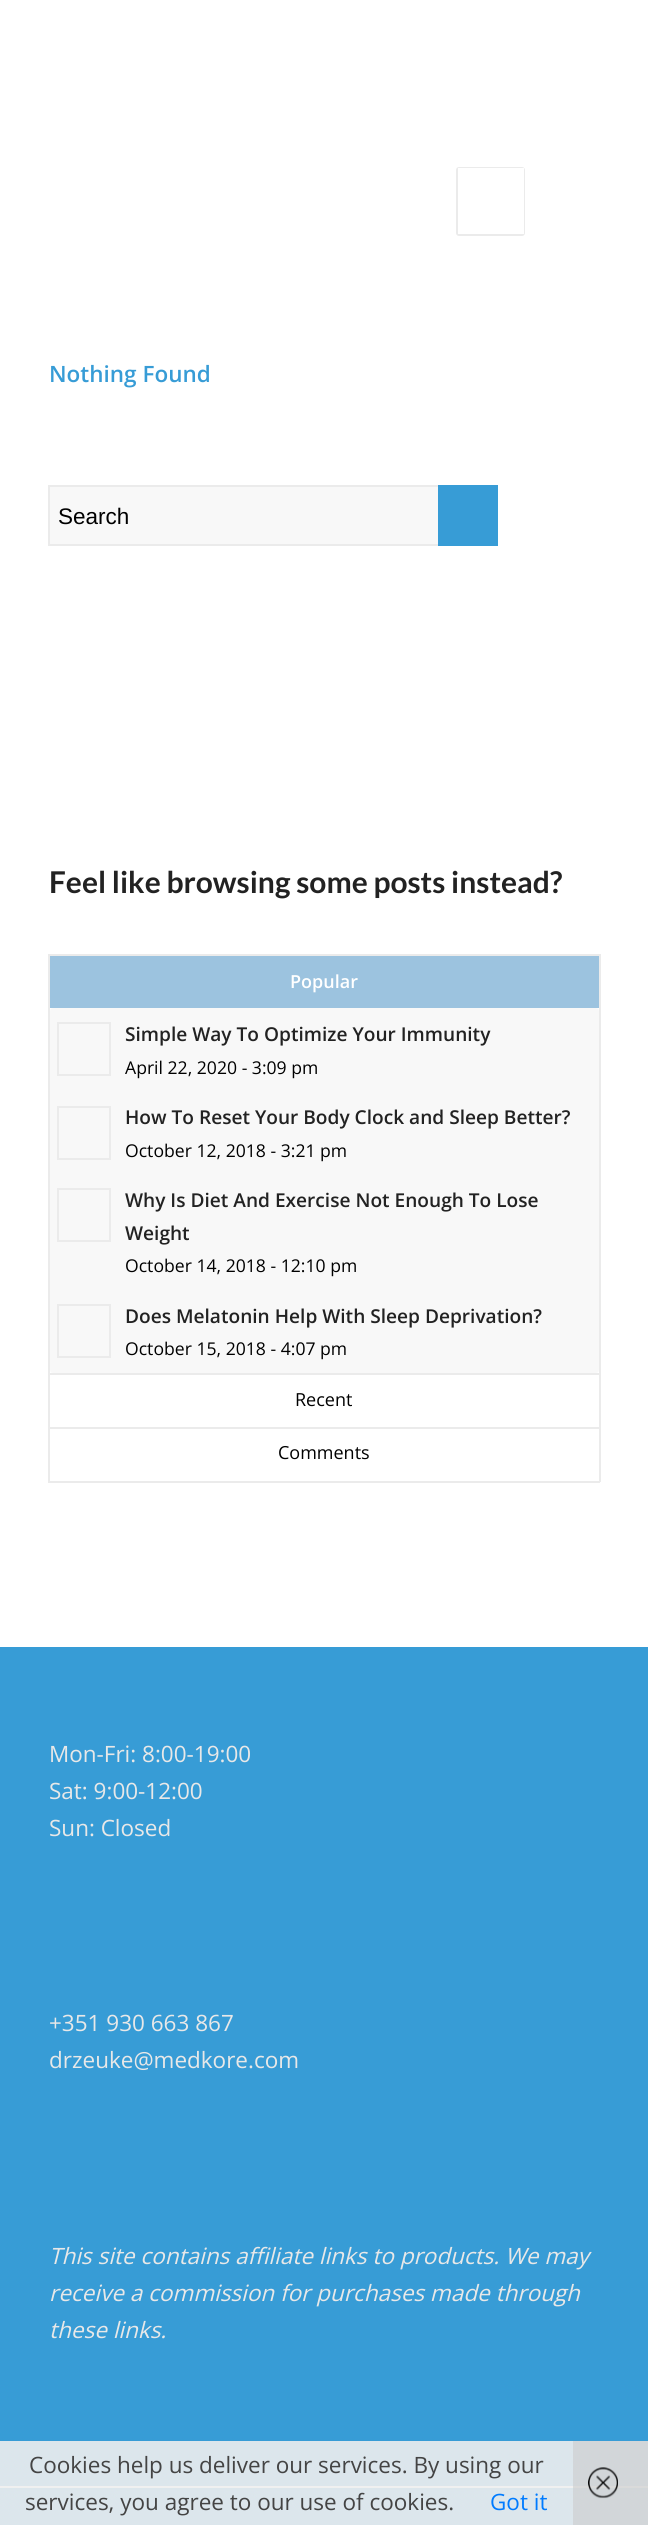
#include <cairo.h>
#include <math.h>
#include <stddef.h>

static cairo_t *c;
static void C(unsigned color){cairo_set_source_rgb(c, (color >> 16) / 255.0, (color >> 8 & 255) / 255.0, (color & 255) / 255.0);}
static void F(const char *family, double size, int italic, int bold){cairo_select_font_face(c, family, italic ? CAIRO_FONT_SLANT_ITALIC : CAIRO_FONT_SLANT_NORMAL,bold ? CAIRO_FONT_WEIGHT_BOLD : CAIRO_FONT_WEIGHT_NORMAL);cairo_set_font_size(c, size);}
static void T(double x, double y, const char *s){cairo_move_to(c, x, y);cairo_show_text(c, s);}
static void R(double x, double y, double w, double h){cairo_rectangle(c, x, y, w, h);cairo_fill(c);}
static void Q(double x, double y, double w, double h, double r){cairo_new_sub_path(c);cairo_arc(c, x + w - r, y + h - r, r, 0, M_PI / 2);cairo_arc(c, x + r, y + h - r, r, M_PI / 2, M_PI);cairo_arc(c, x + r, y + r, r, M_PI, 1.5 * M_PI);cairo_arc(c, x + w - r, y + r, r, 1.5 * M_PI, 2 * M_PI);cairo_close_path(c);}
static void I(const char *path, double x, double y, double w, double h){cairo_surface_t *image = cairo_image_surface_create_from_png(path);cairo_save(c);cairo_set_source_surface(c, image, x, y);cairo_rectangle(c, x, y, w, h);cairo_fill(c);cairo_restore(c);cairo_surface_destroy(image);}
int main(void) {
cairo_surface_t *surface = cairo_image_surface_create(CAIRO_FORMAT_RGB24, 648, 2525);
c = cairo_create(surface);
cairo_font_options_t *options = cairo_font_options_create();
cairo_font_options_set_hint_metrics(options, CAIRO_HINT_METRICS_OFF);
cairo_font_options_set_hint_style(options, CAIRO_HINT_STYLE_NONE);
cairo_set_font_options(c, options);
cairo_set_miter_limit(c, 4);
C(0xffffff);
cairo_paint(c);
Q(457,168,67,67,2);
C(0xebebeb);
cairo_stroke(c);
C(0xffffff);
R(458,168,66,66);
F("Open Sans SemiBold",22.5,0,0);
C(0x379cd6);
T(49,382,"Nothing Found");
C(0xf8f8f8);
R(50,487,388,57);
cairo_rectangle(c,49,486,448,59);
C(0xebebeb);
cairo_stroke(c);
F("Liberation Sans",22.5,0,0);
C(0x000000);
T(58,524,"Search");
C(0x379cd6);
R(438,485,60,61);
F("Lato",30,0,1);
C(0x222222);
T(49,893,"Feel like browsing some posts instead?");
C(0xebebeb);
R(599,954,2,528);
R(48,1481,552,2);
R(48,954,2,528);
C(0x9cc3df);
R(50,956,549,52);
C(0xebebeb);
R(50,954,549,2);
F("Open Sans SemiBold",18,0,0);
C(0xffffff);
T(290,988,"Popular");
C(0xf8f8f8);
Q(50,1008,549,365,3);
cairo_fill(c);
cairo_rectangle(c,58,1023,52,52);
C(0xebebeb);
cairo_stroke(c);
F("Open Sans SemiBold",19.1,0,0);
C(0x222222);
T(125,1041,"Simple Way To Optimize Your Immunity");
F("Open Sans",17.6,0,0);
C(0x000000);
T(125,1074,"April 22, 2020 - 3:09 pm");
cairo_rectangle(c,58,1107,52,52);
C(0xebebeb);
cairo_stroke(c);
F("Open Sans SemiBold",19.1,0,0);
C(0x222222);
T(125,1124,"How To Reset Your Body Clock and Sleep Better?");
F("Open Sans",17.6,0,0);
C(0x000000);
T(125,1157,"October 12, 2018 - 3:21 pm");
cairo_rectangle(c,58,1189,52,52);
C(0xebebeb);
cairo_stroke(c);
F("Open Sans SemiBold",19.1,0,0);
C(0x222222);
T(125,1207,"Why Is Diet And Exercise Not Enough To Lose");
T(125,1240,"Weight");
F("Open Sans",17.6,0,0);
C(0x000000);
T(125,1272,"October 14, 2018 - 12:10 pm");
cairo_rectangle(c,58,1305,52,52);
C(0xebebeb);
cairo_stroke(c);
F("Open Sans SemiBold",19.1,0,0);
C(0x222222);
T(125,1323,"Does Melatonin Help With Sleep Deprivation?");
F("Open Sans",17.6,0,0);
C(0x000000);
T(125,1355,"October 15, 2018 - 4:07 pm");
C(0xebebeb);
R(50,1373,549,2);
F("Open Sans",18,0,0);
C(0x000000);
T(295,1406,"Recent");
C(0xebebeb);
R(50,1427,549,2);
C(0x000000);
T(278,1459,"Comments");
C(0x379cd6);
R(0,1647,648,794);
C(0xdce6ec);
R(0,2441,573,45);
C(0xd2d6d9);
R(573,2441,75,45);
F("Open Sans",22.5,0,0);
C(0xe8e8e8);
T(49,1762,"Mon-Fri: 8:00-19:00");
T(49,1799,"Sat: 9:00-12:00");
T(49,1836,"Sun: Closed");
T(49,2031,"+351 930 663 867");
T(49,2068,"drzeuke@medkore.com");
F("Open Sans",22.5,1,0);
T(49,2264,"This site contains affiliate links to products. We may");
T(49,2301,"receive a commission for purchases made through");
T(49,2338,"these links.");
C(0xdce6ec);
R(0,2488,573,37);
C(0xd2d6d9);
R(573,2488,75,37);
C(0xf0f0f0);
R(0,2486,573,2);
C(0xdadada);
R(573,2486,75,2);
F("Open Sans",22.5,0,0);
C(0x444444);
T(29,2473,"Cookies help us deliver our services. By using our");
T(25,2510,"services, you agree to our use of cookies.");
C(0x007bff);
T(490,2510,"Got it");
I("1.png",588,2467,30,32);
cairo_surface_write_to_png(surface, "o.png");
cairo_font_options_destroy(options);
cairo_destroy(c);
cairo_surface_destroy(surface);
return 0;
}
